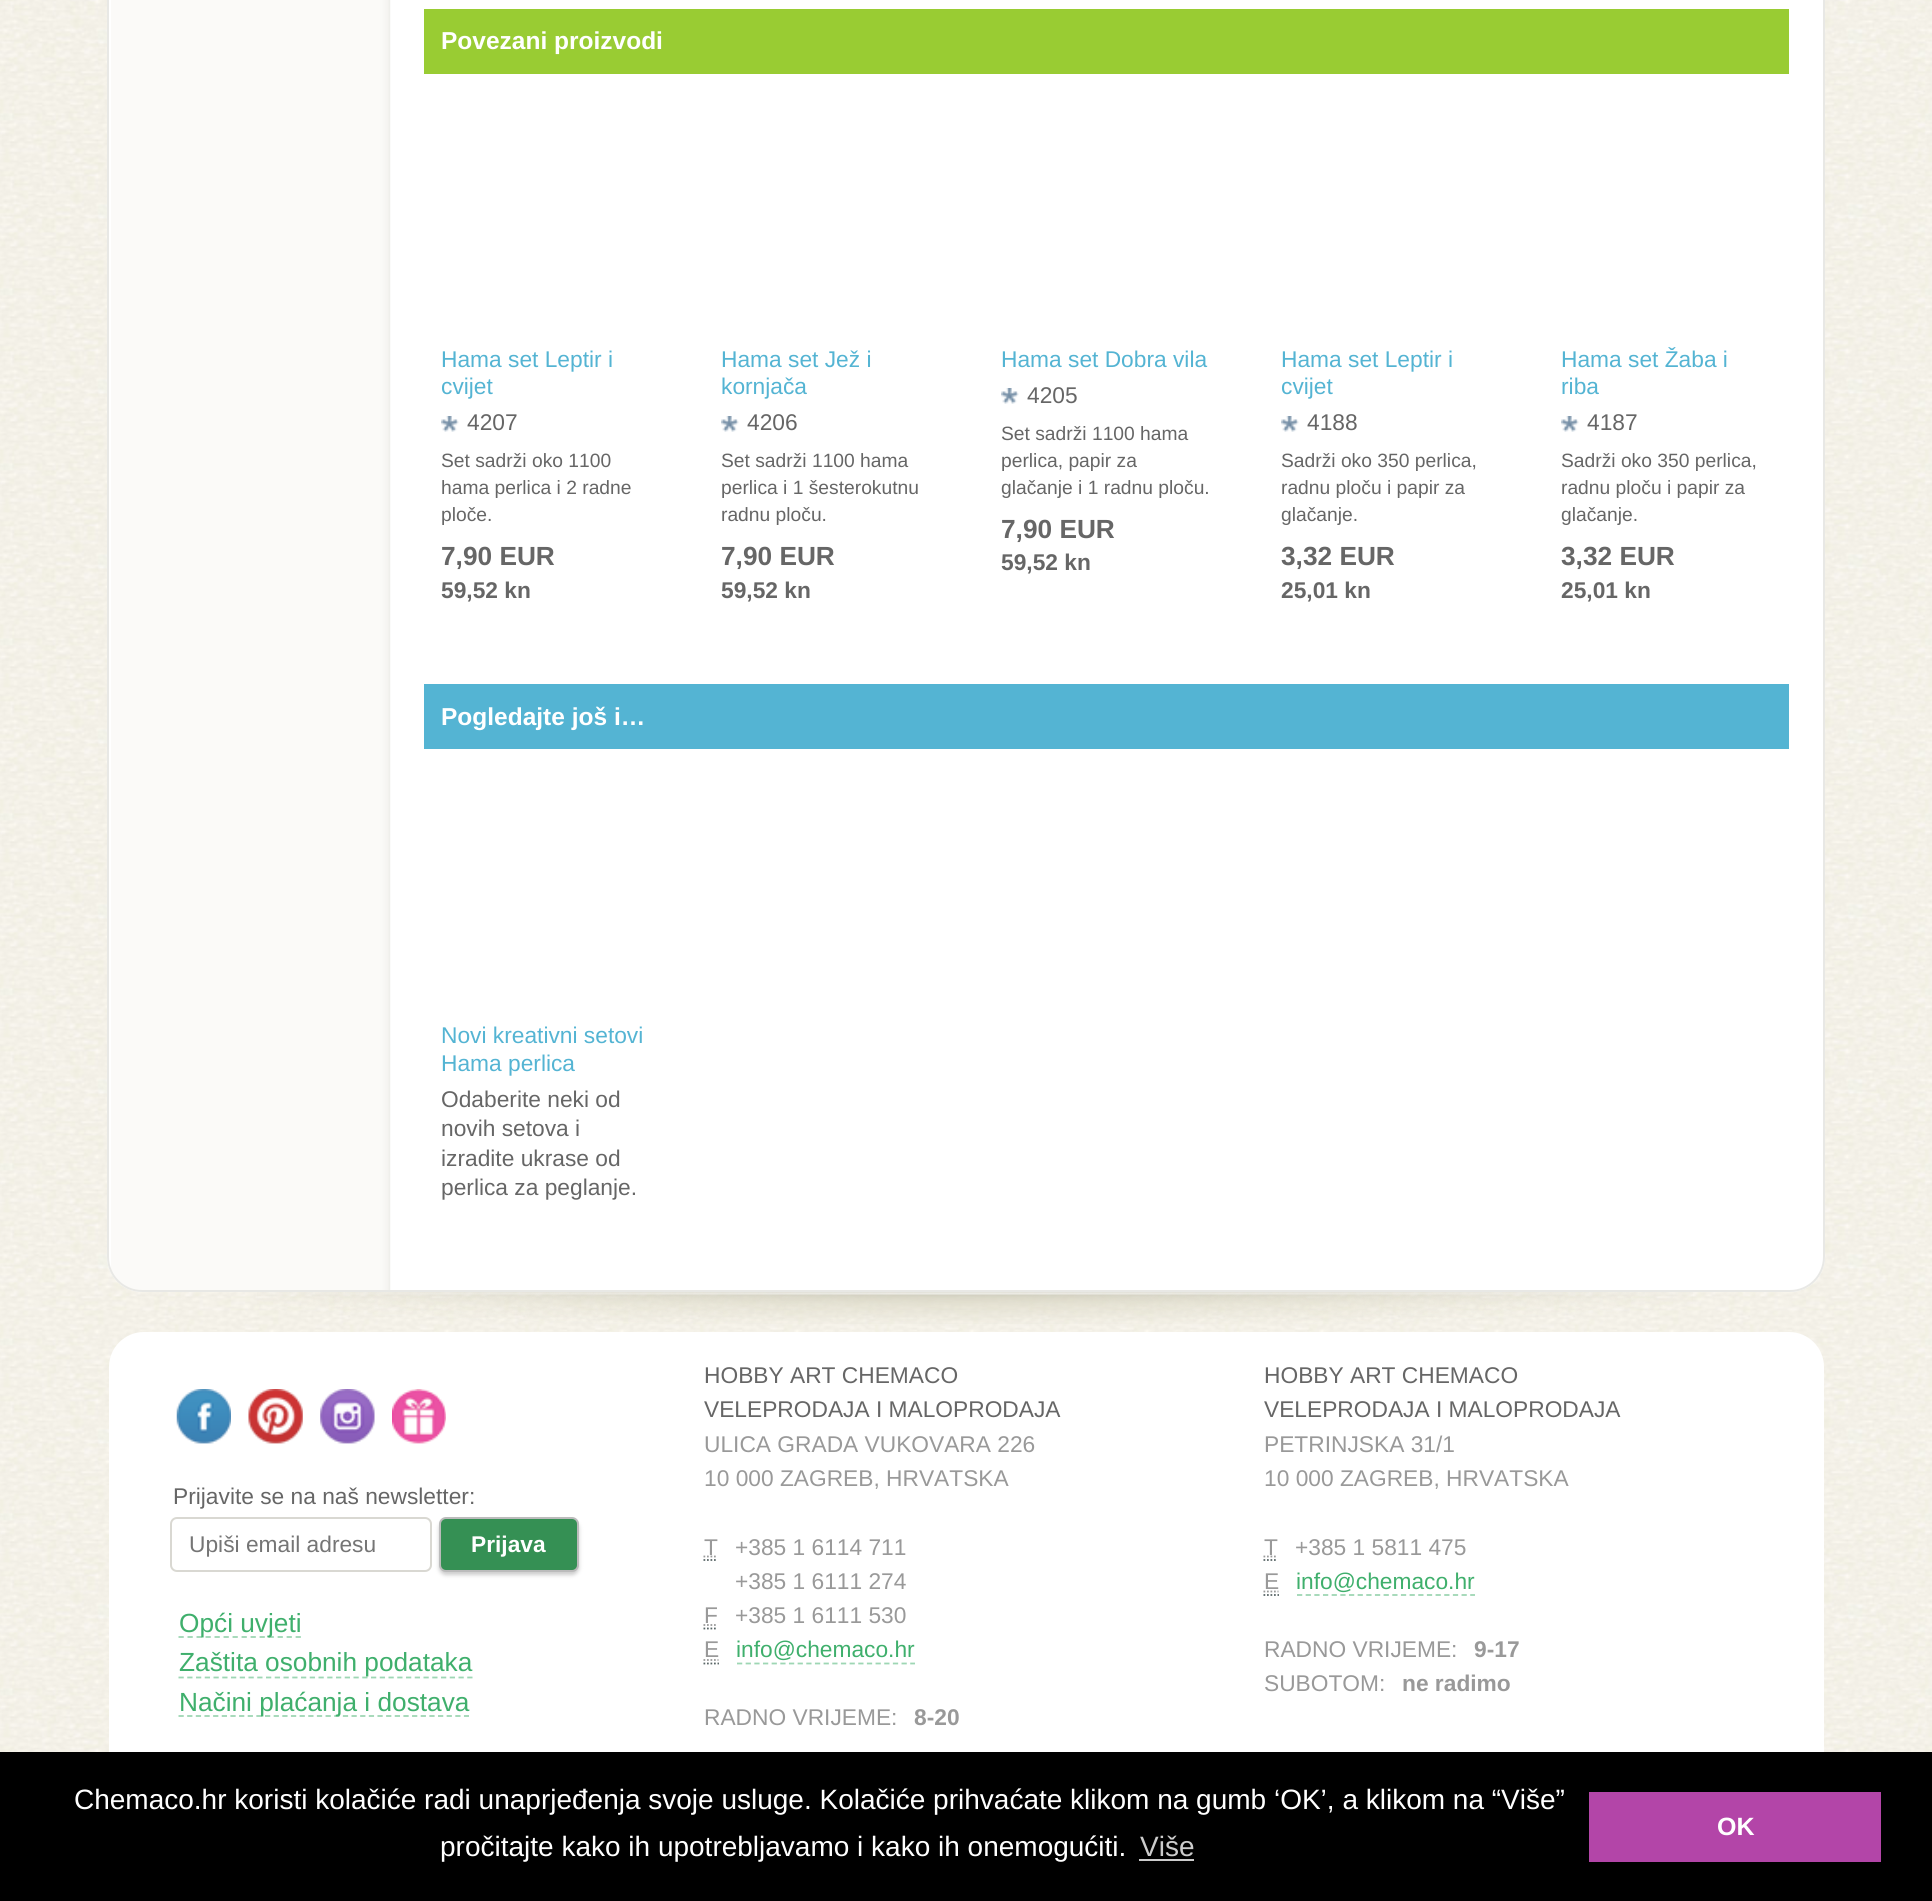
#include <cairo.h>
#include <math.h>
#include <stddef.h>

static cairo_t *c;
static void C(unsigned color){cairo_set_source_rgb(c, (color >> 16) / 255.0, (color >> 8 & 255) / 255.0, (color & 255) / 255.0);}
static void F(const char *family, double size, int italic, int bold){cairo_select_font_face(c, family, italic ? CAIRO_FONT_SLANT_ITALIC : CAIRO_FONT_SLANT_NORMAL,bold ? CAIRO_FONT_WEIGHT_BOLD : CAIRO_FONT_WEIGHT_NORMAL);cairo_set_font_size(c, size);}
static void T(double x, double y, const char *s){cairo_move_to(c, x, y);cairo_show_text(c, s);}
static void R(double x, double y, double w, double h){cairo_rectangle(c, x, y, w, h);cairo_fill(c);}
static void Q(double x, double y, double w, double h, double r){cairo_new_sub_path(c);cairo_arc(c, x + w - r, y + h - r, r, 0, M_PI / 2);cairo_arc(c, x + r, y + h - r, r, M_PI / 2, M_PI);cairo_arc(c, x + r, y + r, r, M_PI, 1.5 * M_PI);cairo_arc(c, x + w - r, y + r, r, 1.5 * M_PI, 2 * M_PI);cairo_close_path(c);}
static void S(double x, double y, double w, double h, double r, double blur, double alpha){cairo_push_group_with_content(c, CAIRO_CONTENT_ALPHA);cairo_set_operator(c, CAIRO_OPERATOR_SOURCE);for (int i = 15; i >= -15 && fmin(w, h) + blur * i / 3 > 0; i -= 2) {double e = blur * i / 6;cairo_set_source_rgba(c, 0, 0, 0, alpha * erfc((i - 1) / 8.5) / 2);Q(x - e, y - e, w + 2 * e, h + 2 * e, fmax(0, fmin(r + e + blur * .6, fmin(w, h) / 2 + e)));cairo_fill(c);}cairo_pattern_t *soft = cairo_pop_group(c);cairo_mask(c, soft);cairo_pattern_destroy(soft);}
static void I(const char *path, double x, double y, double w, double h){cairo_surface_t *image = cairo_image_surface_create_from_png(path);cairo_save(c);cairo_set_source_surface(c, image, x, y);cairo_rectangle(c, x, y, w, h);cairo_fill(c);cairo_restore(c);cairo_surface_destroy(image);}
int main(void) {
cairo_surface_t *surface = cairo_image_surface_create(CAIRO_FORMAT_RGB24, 1932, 1901);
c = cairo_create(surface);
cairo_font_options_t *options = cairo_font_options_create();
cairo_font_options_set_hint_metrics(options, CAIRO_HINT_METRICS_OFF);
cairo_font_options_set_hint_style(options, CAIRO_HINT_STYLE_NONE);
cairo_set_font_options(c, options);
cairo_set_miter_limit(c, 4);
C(0xffffff);
cairo_paint(c);
I("1.png",0,0,1932,1752);
I("2.png",257,1292,1436,32);
C(0xffffff);
Q(107,-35,1718,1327,35);
cairo_fill(c);
I("3.png",111,0,280,1290);
Q(108,-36,1716,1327,34);
C(0xe8e8e5);
cairo_stroke(c);
C(0x99cc33);
R(424,9,1365,65);
F("Liberation Sans",24.5,0,1);
C(0xffffff);
T(441,49,"Povezani proizvodi");
F("Liberation Sans",22.75,0,0);
C(0x54b4d3);
T(441,367,"Hama set Leptir i");
T(441,394,"cvijet");
I("4.png",441,416,18,16);
C(0x666666);
T(467,430,"4207");
F("Liberation Sans",19.25,0,0);
T(441,467,"Set sadrži oko 1100");
T(441,494,"hama perlica i 2 radne");
T(441,521,"ploče.");
F("Liberation Sans",26.25,0,1);
T(441,565,"7,90 EUR");
F("Liberation Sans",22.75,0,1);
T(441,598,"59,52 kn");
F("Liberation Sans",22.75,0,0);
C(0x54b4d3);
T(721,367,"Hama set Jež i");
T(721,394,"kornjača");
I("4.png",721,416,18,16);
C(0x666666);
T(747,430,"4206");
F("Liberation Sans",19.25,0,0);
T(721,467,"Set sadrži 1100 hama");
T(721,494,"perlica i 1 šesterokutnu");
T(721,521,"radnu ploču.");
F("Liberation Sans",26.25,0,1);
T(721,565,"7,90 EUR");
F("Liberation Sans",22.75,0,1);
T(721,598,"59,52 kn");
F("Liberation Sans",22.75,0,0);
C(0x54b4d3);
T(1001,367,"Hama set Dobra vila");
I("4.png",1001,388,18,16);
C(0x666666);
T(1027,403,"4205");
F("Liberation Sans",19.25,0,0);
T(1001,440,"Set sadrži 1100 hama");
T(1001,467,"perlica, papir za");
T(1001,494,"glačanje i 1 radnu ploču.");
F("Liberation Sans",26.25,0,1);
T(1001,538,"7,90 EUR");
F("Liberation Sans",22.75,0,1);
T(1001,570,"59,52 kn");
F("Liberation Sans",22.75,0,0);
C(0x54b4d3);
T(1281,367,"Hama set Leptir i");
T(1281,394,"cvijet");
I("5.png",1281,416,18,16);
C(0x666666);
T(1307,430,"4188");
F("Liberation Sans",19.25,0,0);
T(1281,467,"Sadrži oko 350 perlica,");
T(1281,494,"radnu ploču i papir za");
T(1281,521,"glačanje.");
F("Liberation Sans",26.25,0,1);
T(1281,565,"3,32 EUR");
F("Liberation Sans",22.75,0,1);
T(1281,598,"25,01 kn");
F("Liberation Sans",22.75,0,0);
C(0x54b4d3);
T(1561,367,"Hama set Žaba i");
T(1561,394,"riba");
I("4.png",1561,416,18,16);
C(0x666666);
T(1587,430,"4187");
F("Liberation Sans",19.25,0,0);
T(1561,467,"Sadrži oko 350 perlica,");
T(1561,494,"radnu ploču i papir za");
T(1561,521,"glačanje.");
F("Liberation Sans",26.25,0,1);
T(1561,565,"3,32 EUR");
F("Liberation Sans",22.75,0,1);
T(1561,598,"25,01 kn");
C(0x54b4d3);
R(424,684,1365,65);
F("Liberation Sans",24.5,0,1);
C(0xffffff);
T(441,725,"Pogledajte još i…");
F("Liberation Sans",22.75,0,0);
C(0x54b4d3);
T(441,1043,"Novi kreativni setovi");
T(441,1071,"Hama perlica");
C(0x666666);
T(441,1107,"Odaberite neki od");
T(441,1136,"novih setova i");
T(441,1166,"izradite ukrase od");
T(441,1195,"perlica za peglanje.");
C(0xffffff);
Q(109,1332,1715,532,35);
cairo_fill(c);
I("6.png",176,1389,55,55);
I("7.png",248,1389,55,55);
I("8.png",320,1389,55,55);
I("9.png",392,1389,54,55);
C(0x666666);
T(173,1504,"Prijavite se na naš newsletter:");
Q(171,1518,260,53,6);
C(0xd9d8d2);
cairo_stroke(c);
C(0x757575);
T(189,1552,"Upiši email adresu");
C(0xcccccc);
S(439,1521,140,54,7,2,1);
C(0x359054);
Q(440,1518,138,53,6);
cairo_fill_preserve(c);
C(0xbbbbbb);
cairo_stroke(c);
F("Liberation Sans",22.75,0,1);
C(0xffffff);
T(471,1552,"Prijava");
cairo_new_path(c);
cairo_move_to(c,178.5,1637);
cairo_line_to(c,301,1637);
C(0x9ed6b4);
cairo_set_line_width(c,1.8);
cairo_set_dash(c,(double[]){5.25,3.76},2,0);
cairo_stroke(c);
F("Liberation Sans",26.25,0,0);
C(0x3faf6c);
T(179,1632,"Opći uvjeti");
cairo_new_path(c);
cairo_move_to(c,178.5,1677.5);
cairo_line_to(c,472.5,1677.5);
C(0x9ed6b4);
cairo_set_dash(c,(double[]){5.25,3.5},2,0);
cairo_stroke(c);
C(0x3faf6c);
T(179,1671,"Zaštita osobnih podataka");
cairo_new_path(c);
cairo_move_to(c,178.5,1716);
cairo_line_to(c,469,1716);
C(0x9ed6b4);
cairo_set_dash(c,(double[]){5.25,3.4},2,0);
cairo_stroke(c);
C(0x3faf6c);
T(179,1711,"Načini plaćanja i dostava");
F("Liberation Sans",22.75,0,0);
C(0x666666);
T(704,1383,"HOBBY ART CHEMACO");
T(704,1417,"VELEPRODAJA I MALOPRODAJA");
C(0x999999);
T(704,1452,"ULICA GRADA VUKOVARA 226");
T(704,1486,"10 000 ZAGREB, HRVATSKA");
T(704,1555,"T");
cairo_new_path(c);
cairo_move_to(c,703.5,1560);
cairo_line_to(c,717.5,1560);
C(0x5a6768);
cairo_set_dash(c,(double[]){1.75,1.75},2,0);
cairo_stroke(c);
cairo_new_path(c);
cairo_move_to(c,703.5,1556.5);
cairo_line_to(c,717.5,1556.5);
C(0x999999);
cairo_stroke(c);
T(735,1555,"+385 1 6114 711");
T(735,1589,"+385 1 6111 274");
T(704,1623,"F");
cairo_new_path(c);
cairo_move_to(c,703.5,1628.5);
cairo_line_to(c,717.5,1628.5);
C(0x5a6768);
cairo_stroke(c);
cairo_new_path(c);
cairo_move_to(c,703.5,1625);
cairo_line_to(c,717.5,1625);
C(0x999999);
cairo_stroke(c);
T(735,1623,"+385 1 6111 530");
T(704,1657,"E");
cairo_new_path(c);
cairo_move_to(c,703.5,1663.5);
cairo_line_to(c,719,1663.5);
C(0x5a6768);
cairo_stroke(c);
cairo_new_path(c);
cairo_move_to(c,703.5,1660);
cairo_line_to(c,718.5,1660);
C(0x999999);
cairo_stroke(c);
C(0x3faf6c);
T(736,1657,"info@chemaco.hr");
cairo_new_path(c);
cairo_move_to(c,737,1663.5);
cairo_line_to(c,915,1663.5);
C(0x9ed6b4);
cairo_set_dash(c,(double[]){5.25,3.41},2,0);
cairo_stroke(c);
C(0x999999);
T(704,1725,"RADNO VRIJEME:");
F("Liberation Sans",22.75,0,1);
T(914,1725,"8-20");
F("Liberation Sans",22.75,0,0);
C(0x666666);
T(1264,1383,"HOBBY ART CHEMACO");
T(1264,1417,"VELEPRODAJA I MALOPRODAJA");
C(0x999999);
T(1264,1452,"PETRINJSKA 31/1");
T(1264,1486,"10 000 ZAGREB, HRVATSKA");
T(1264,1555,"T");
cairo_new_path(c);
cairo_move_to(c,1263.5,1560);
cairo_line_to(c,1277.5,1560);
C(0x5a6768);
cairo_set_dash(c,(double[]){1.75,1.75},2,0);
cairo_stroke(c);
cairo_new_path(c);
cairo_move_to(c,1263.5,1556.5);
cairo_line_to(c,1277.5,1556.5);
C(0x999999);
cairo_stroke(c);
T(1295,1555,"+385 1 5811 475");
T(1264,1589,"E");
cairo_new_path(c);
cairo_move_to(c,1263.5,1595);
cairo_line_to(c,1279,1595);
C(0x5a6768);
cairo_stroke(c);
cairo_new_path(c);
cairo_move_to(c,1263.5,1591.5);
cairo_line_to(c,1278.5,1591.5);
C(0x999999);
cairo_stroke(c);
C(0x3faf6c);
T(1296,1589,"info@chemaco.hr");
cairo_new_path(c);
cairo_move_to(c,1297,1595);
cairo_line_to(c,1475,1595);
C(0x9ed6b4);
cairo_set_dash(c,(double[]){5.25,3.41},2,0);
cairo_stroke(c);
C(0x999999);
T(1264,1657,"RADNO VRIJEME:");
F("Liberation Sans",22.75,0,1);
T(1474,1657,"9-17");
F("Liberation Sans",22.75,0,0);
T(1264,1691,"SUBOTOM:");
F("Liberation Sans",22.75,0,1);
T(1402,1691,"ne radimo");
C(0x000000);
R(0,1752,1932,149);
F("Liberation Sans",28,0,0);
C(0xffffff);
T(74,1809,"Chemaco.hr koristi kolačiće radi unaprjeđenja svoje usluge. Kolačiće prihvaćate klikom na gumb ‘OK’, a klikom na “Više”");
T(440,1856,"pročitajte kako ih upotrebljavamo i kako ih onemogućiti.");
C(0xcccccc);
T(1140,1856,"Više");
R(1139,1859,55,2);
C(0xb345a8);
R(1589,1792,292,70);
F("Liberation Sans",25,0,1);
C(0xffffff);
T(1717,1835,"OK");
cairo_surface_write_to_png(surface, "o.png");
cairo_font_options_destroy(options);
cairo_destroy(c);
cairo_surface_destroy(surface);
return 0;
}
